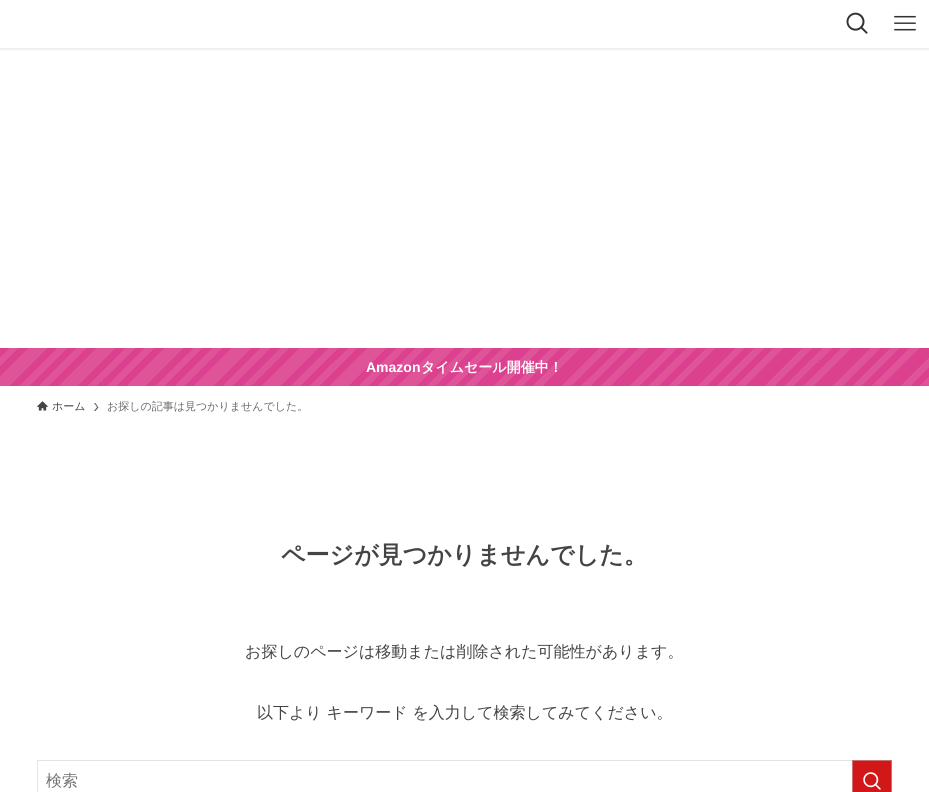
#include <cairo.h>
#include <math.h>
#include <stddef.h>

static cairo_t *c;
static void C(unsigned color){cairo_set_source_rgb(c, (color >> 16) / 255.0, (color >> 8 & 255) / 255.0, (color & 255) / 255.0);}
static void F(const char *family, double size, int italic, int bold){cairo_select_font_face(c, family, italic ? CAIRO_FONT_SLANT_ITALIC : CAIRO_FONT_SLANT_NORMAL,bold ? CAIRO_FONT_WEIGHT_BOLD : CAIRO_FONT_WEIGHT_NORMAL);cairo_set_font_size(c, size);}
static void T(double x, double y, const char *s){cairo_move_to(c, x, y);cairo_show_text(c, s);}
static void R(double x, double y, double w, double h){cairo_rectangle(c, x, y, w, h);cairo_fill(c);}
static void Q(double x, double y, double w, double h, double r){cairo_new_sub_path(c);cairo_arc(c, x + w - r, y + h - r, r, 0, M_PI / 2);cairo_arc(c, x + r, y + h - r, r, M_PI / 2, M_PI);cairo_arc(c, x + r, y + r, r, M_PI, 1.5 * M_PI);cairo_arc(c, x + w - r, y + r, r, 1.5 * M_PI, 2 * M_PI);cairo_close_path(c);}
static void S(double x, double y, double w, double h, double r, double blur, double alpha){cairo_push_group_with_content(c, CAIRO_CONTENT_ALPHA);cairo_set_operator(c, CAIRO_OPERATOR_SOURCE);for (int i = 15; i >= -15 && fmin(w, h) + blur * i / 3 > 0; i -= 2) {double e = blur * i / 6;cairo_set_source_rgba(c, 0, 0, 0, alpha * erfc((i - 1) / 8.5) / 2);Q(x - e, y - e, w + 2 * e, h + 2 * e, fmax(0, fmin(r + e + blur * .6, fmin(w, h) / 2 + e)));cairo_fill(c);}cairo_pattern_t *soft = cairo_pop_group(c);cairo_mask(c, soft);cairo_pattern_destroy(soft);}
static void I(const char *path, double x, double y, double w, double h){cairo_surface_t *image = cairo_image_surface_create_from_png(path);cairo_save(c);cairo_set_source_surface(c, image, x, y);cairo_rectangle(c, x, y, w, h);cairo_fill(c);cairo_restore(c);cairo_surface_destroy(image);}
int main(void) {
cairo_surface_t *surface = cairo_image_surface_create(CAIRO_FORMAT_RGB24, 929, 792);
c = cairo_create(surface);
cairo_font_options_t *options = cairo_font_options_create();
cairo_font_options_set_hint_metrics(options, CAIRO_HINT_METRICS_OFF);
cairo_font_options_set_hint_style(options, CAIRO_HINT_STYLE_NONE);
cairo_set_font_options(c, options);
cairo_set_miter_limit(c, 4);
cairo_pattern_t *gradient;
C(0xffffff);
cairo_paint(c);
cairo_save(c);
cairo_rectangle(c,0,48,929,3);
cairo_clip(c);
C(0x000000);
S(0,1,929,48,0,2,.12);
cairo_restore(c);
I("1.png",846,12,22,22);
I("2.png",894,15,22,16);
gradient = cairo_pattern_create_linear(706,609,223,125);
cairo_pattern_add_color_stop_rgba(gradient,0,0.875,0.329,0.6,1);
cairo_pattern_add_color_stop_rgba(gradient,.01,0.875,0.329,0.6,1);
cairo_pattern_add_color_stop_rgba(gradient,.01,0.859,0.255,0.557,1);
cairo_pattern_add_color_stop_rgba(gradient,.02,0.859,0.255,0.557,1);
cairo_pattern_add_color_stop_rgba(gradient,.02,0.875,0.329,0.6,1);
cairo_pattern_add_color_stop_rgba(gradient,.03,0.875,0.329,0.6,1);
cairo_pattern_add_color_stop_rgba(gradient,.03,0.859,0.255,0.557,1);
cairo_pattern_add_color_stop_rgba(gradient,.04,0.859,0.255,0.557,1);
cairo_pattern_add_color_stop_rgba(gradient,.04,0.875,0.329,0.6,1);
cairo_pattern_add_color_stop_rgba(gradient,.04,0.859,0.255,0.557,1);
cairo_pattern_add_color_stop_rgba(gradient,.05,0.859,0.255,0.557,1);
cairo_pattern_add_color_stop_rgba(gradient,.05,0.875,0.329,0.6,1);
cairo_pattern_add_color_stop_rgba(gradient,.06,0.875,0.329,0.6,1);
cairo_pattern_add_color_stop_rgba(gradient,.06,0.859,0.255,0.557,1);
cairo_pattern_add_color_stop_rgba(gradient,.07,0.859,0.255,0.557,1);
cairo_pattern_add_color_stop_rgba(gradient,.07,0.875,0.329,0.6,1);
cairo_pattern_add_color_stop_rgba(gradient,.08,0.875,0.329,0.6,1);
cairo_pattern_add_color_stop_rgba(gradient,.08,0.859,0.255,0.557,1);
cairo_pattern_add_color_stop_rgba(gradient,.09,0.859,0.255,0.557,1);
cairo_pattern_add_color_stop_rgba(gradient,.09,0.875,0.329,0.6,1);
cairo_pattern_add_color_stop_rgba(gradient,.1,0.875,0.329,0.6,1);
cairo_pattern_add_color_stop_rgba(gradient,.1,0.859,0.255,0.557,1);
cairo_pattern_add_color_stop_rgba(gradient,.11,0.859,0.255,0.557,1);
cairo_pattern_add_color_stop_rgba(gradient,.11,0.875,0.329,0.6,1);
cairo_pattern_add_color_stop_rgba(gradient,.11,0.859,0.255,0.557,1);
cairo_pattern_add_color_stop_rgba(gradient,.12,0.859,0.255,0.557,1);
cairo_pattern_add_color_stop_rgba(gradient,.12,0.875,0.329,0.6,1);
cairo_pattern_add_color_stop_rgba(gradient,.13,0.875,0.329,0.6,1);
cairo_pattern_add_color_stop_rgba(gradient,.13,0.859,0.255,0.557,1);
cairo_pattern_add_color_stop_rgba(gradient,.14,0.859,0.255,0.557,1);
cairo_pattern_add_color_stop_rgba(gradient,.14,0.875,0.329,0.6,1);
cairo_pattern_add_color_stop_rgba(gradient,.15,0.875,0.329,0.6,1);
cairo_pattern_add_color_stop_rgba(gradient,.15,0.859,0.255,0.557,1);
cairo_pattern_add_color_stop_rgba(gradient,.16,0.859,0.255,0.557,1);
cairo_pattern_add_color_stop_rgba(gradient,.16,0.875,0.329,0.6,1);
cairo_pattern_add_color_stop_rgba(gradient,.17,0.875,0.329,0.6,1);
cairo_pattern_add_color_stop_rgba(gradient,.17,0.859,0.255,0.557,1);
cairo_pattern_add_color_stop_rgba(gradient,.18,0.859,0.255,0.557,1);
cairo_pattern_add_color_stop_rgba(gradient,.18,0.875,0.329,0.6,1);
cairo_pattern_add_color_stop_rgba(gradient,.18,0.859,0.255,0.557,1);
cairo_pattern_add_color_stop_rgba(gradient,.19,0.859,0.255,0.557,1);
cairo_pattern_add_color_stop_rgba(gradient,.19,0.875,0.329,0.6,1);
cairo_pattern_add_color_stop_rgba(gradient,.2,0.875,0.329,0.6,1);
cairo_pattern_add_color_stop_rgba(gradient,.2,0.859,0.255,0.557,1);
cairo_pattern_add_color_stop_rgba(gradient,.21,0.859,0.255,0.557,1);
cairo_pattern_add_color_stop_rgba(gradient,.21,0.875,0.329,0.6,1);
cairo_pattern_add_color_stop_rgba(gradient,.22,0.875,0.329,0.6,1);
cairo_pattern_add_color_stop_rgba(gradient,.22,0.859,0.255,0.557,1);
cairo_pattern_add_color_stop_rgba(gradient,.23,0.859,0.255,0.557,1);
cairo_pattern_add_color_stop_rgba(gradient,.23,0.875,0.329,0.6,1);
cairo_pattern_add_color_stop_rgba(gradient,.24,0.875,0.329,0.6,1);
cairo_pattern_add_color_stop_rgba(gradient,.24,0.859,0.255,0.557,1);
cairo_pattern_add_color_stop_rgba(gradient,.25,0.859,0.255,0.557,1);
cairo_pattern_add_color_stop_rgba(gradient,.25,0.875,0.329,0.6,1);
cairo_pattern_add_color_stop_rgba(gradient,.25,0.859,0.255,0.557,1);
cairo_pattern_add_color_stop_rgba(gradient,.26,0.859,0.255,0.557,1);
cairo_pattern_add_color_stop_rgba(gradient,.26,0.875,0.329,0.6,1);
cairo_pattern_add_color_stop_rgba(gradient,.27,0.875,0.329,0.6,1);
cairo_pattern_add_color_stop_rgba(gradient,.27,0.859,0.255,0.557,1);
cairo_pattern_add_color_stop_rgba(gradient,.28,0.859,0.255,0.557,1);
cairo_pattern_add_color_stop_rgba(gradient,.28,0.875,0.329,0.6,1);
cairo_pattern_add_color_stop_rgba(gradient,.29,0.875,0.329,0.6,1);
cairo_pattern_add_color_stop_rgba(gradient,.29,0.859,0.255,0.557,1);
cairo_pattern_add_color_stop_rgba(gradient,.3,0.859,0.255,0.557,1);
cairo_pattern_add_color_stop_rgba(gradient,.3,0.875,0.329,0.6,1);
cairo_pattern_add_color_stop_rgba(gradient,.31,0.875,0.329,0.6,1);
cairo_pattern_add_color_stop_rgba(gradient,.31,0.859,0.255,0.557,1);
cairo_pattern_add_color_stop_rgba(gradient,.32,0.859,0.255,0.557,1);
cairo_pattern_add_color_stop_rgba(gradient,.32,0.875,0.329,0.6,1);
cairo_pattern_add_color_stop_rgba(gradient,.32,0.859,0.255,0.557,1);
cairo_pattern_add_color_stop_rgba(gradient,.33,0.859,0.255,0.557,1);
cairo_pattern_add_color_stop_rgba(gradient,.33,0.875,0.329,0.6,1);
cairo_pattern_add_color_stop_rgba(gradient,.34,0.875,0.329,0.6,1);
cairo_pattern_add_color_stop_rgba(gradient,.34,0.859,0.255,0.557,1);
cairo_pattern_add_color_stop_rgba(gradient,.35,0.859,0.255,0.557,1);
cairo_pattern_add_color_stop_rgba(gradient,.35,0.875,0.329,0.6,1);
cairo_pattern_add_color_stop_rgba(gradient,.36,0.875,0.329,0.6,1);
cairo_pattern_add_color_stop_rgba(gradient,.36,0.859,0.255,0.557,1);
cairo_pattern_add_color_stop_rgba(gradient,.37,0.859,0.255,0.557,1);
cairo_pattern_add_color_stop_rgba(gradient,.37,0.875,0.329,0.6,1);
cairo_pattern_add_color_stop_rgba(gradient,.38,0.875,0.329,0.6,1);
cairo_pattern_add_color_stop_rgba(gradient,.38,0.859,0.255,0.557,1);
cairo_pattern_add_color_stop_rgba(gradient,.39,0.859,0.255,0.557,1);
cairo_pattern_add_color_stop_rgba(gradient,.39,0.875,0.329,0.6,1);
cairo_pattern_add_color_stop_rgba(gradient,.39,0.859,0.255,0.557,1);
cairo_pattern_add_color_stop_rgba(gradient,.4,0.859,0.255,0.557,1);
cairo_pattern_add_color_stop_rgba(gradient,.4,0.875,0.329,0.6,1);
cairo_pattern_add_color_stop_rgba(gradient,.41,0.875,0.329,0.6,1);
cairo_pattern_add_color_stop_rgba(gradient,.41,0.859,0.255,0.557,1);
cairo_pattern_add_color_stop_rgba(gradient,.42,0.859,0.255,0.557,1);
cairo_pattern_add_color_stop_rgba(gradient,.42,0.875,0.329,0.6,1);
cairo_pattern_add_color_stop_rgba(gradient,.43,0.875,0.329,0.6,1);
cairo_pattern_add_color_stop_rgba(gradient,.43,0.859,0.255,0.557,1);
cairo_pattern_add_color_stop_rgba(gradient,.44,0.859,0.255,0.557,1);
cairo_pattern_add_color_stop_rgba(gradient,.44,0.875,0.329,0.6,1);
cairo_pattern_add_color_stop_rgba(gradient,.45,0.875,0.329,0.6,1);
cairo_pattern_add_color_stop_rgba(gradient,.45,0.859,0.255,0.557,1);
cairo_pattern_add_color_stop_rgba(gradient,.46,0.859,0.255,0.557,1);
cairo_pattern_add_color_stop_rgba(gradient,.46,0.875,0.329,0.6,1);
cairo_pattern_add_color_stop_rgba(gradient,.46,0.859,0.255,0.557,1);
cairo_pattern_add_color_stop_rgba(gradient,.47,0.859,0.255,0.557,1);
cairo_pattern_add_color_stop_rgba(gradient,.47,0.875,0.329,0.6,1);
cairo_pattern_add_color_stop_rgba(gradient,.48,0.875,0.329,0.6,1);
cairo_pattern_add_color_stop_rgba(gradient,.48,0.859,0.255,0.557,1);
cairo_pattern_add_color_stop_rgba(gradient,.49,0.859,0.255,0.557,1);
cairo_pattern_add_color_stop_rgba(gradient,.49,0.875,0.329,0.6,1);
cairo_pattern_add_color_stop_rgba(gradient,.5,0.875,0.329,0.6,1);
cairo_pattern_add_color_stop_rgba(gradient,.5,0.859,0.255,0.557,1);
cairo_pattern_add_color_stop_rgba(gradient,.51,0.859,0.255,0.557,1);
cairo_pattern_add_color_stop_rgba(gradient,.51,0.875,0.329,0.6,1);
cairo_pattern_add_color_stop_rgba(gradient,.52,0.875,0.329,0.6,1);
cairo_pattern_add_color_stop_rgba(gradient,.52,0.859,0.255,0.557,1);
cairo_pattern_add_color_stop_rgba(gradient,.53,0.859,0.255,0.557,1);
cairo_pattern_add_color_stop_rgba(gradient,.53,0.875,0.329,0.6,1);
cairo_pattern_add_color_stop_rgba(gradient,.54,0.875,0.329,0.6,1);
cairo_pattern_add_color_stop_rgba(gradient,.54,0.859,0.255,0.557,1);
cairo_pattern_add_color_stop_rgba(gradient,.54,0.875,0.329,0.6,1);
cairo_pattern_add_color_stop_rgba(gradient,.55,0.875,0.329,0.6,1);
cairo_pattern_add_color_stop_rgba(gradient,.55,0.859,0.255,0.557,1);
cairo_pattern_add_color_stop_rgba(gradient,.56,0.859,0.255,0.557,1);
cairo_pattern_add_color_stop_rgba(gradient,.56,0.875,0.329,0.6,1);
cairo_pattern_add_color_stop_rgba(gradient,.57,0.875,0.329,0.6,1);
cairo_pattern_add_color_stop_rgba(gradient,.57,0.859,0.255,0.557,1);
cairo_pattern_add_color_stop_rgba(gradient,.58,0.859,0.255,0.557,1);
cairo_pattern_add_color_stop_rgba(gradient,.58,0.875,0.329,0.6,1);
cairo_pattern_add_color_stop_rgba(gradient,.59,0.875,0.329,0.6,1);
cairo_pattern_add_color_stop_rgba(gradient,.59,0.859,0.255,0.557,1);
cairo_pattern_add_color_stop_rgba(gradient,.6,0.859,0.255,0.557,1);
cairo_pattern_add_color_stop_rgba(gradient,.6,0.875,0.329,0.6,1);
cairo_pattern_add_color_stop_rgba(gradient,.61,0.875,0.329,0.6,1);
cairo_pattern_add_color_stop_rgba(gradient,.61,0.859,0.255,0.557,1);
cairo_pattern_add_color_stop_rgba(gradient,.61,0.875,0.329,0.6,1);
cairo_pattern_add_color_stop_rgba(gradient,.62,0.875,0.329,0.6,1);
cairo_pattern_add_color_stop_rgba(gradient,.62,0.859,0.255,0.557,1);
cairo_pattern_add_color_stop_rgba(gradient,.63,0.859,0.255,0.557,1);
cairo_pattern_add_color_stop_rgba(gradient,.63,0.875,0.329,0.6,1);
cairo_pattern_add_color_stop_rgba(gradient,.64,0.875,0.329,0.6,1);
cairo_pattern_add_color_stop_rgba(gradient,.64,0.859,0.255,0.557,1);
cairo_pattern_add_color_stop_rgba(gradient,.65,0.859,0.255,0.557,1);
cairo_pattern_add_color_stop_rgba(gradient,.65,0.875,0.329,0.6,1);
cairo_pattern_add_color_stop_rgba(gradient,.66,0.875,0.329,0.6,1);
cairo_pattern_add_color_stop_rgba(gradient,.66,0.859,0.255,0.557,1);
cairo_pattern_add_color_stop_rgba(gradient,.67,0.859,0.255,0.557,1);
cairo_pattern_add_color_stop_rgba(gradient,.67,0.875,0.329,0.6,1);
cairo_pattern_add_color_stop_rgba(gradient,.68,0.875,0.329,0.6,1);
cairo_pattern_add_color_stop_rgba(gradient,.68,0.859,0.255,0.557,1);
cairo_pattern_add_color_stop_rgba(gradient,.68,0.875,0.329,0.6,1);
cairo_pattern_add_color_stop_rgba(gradient,.69,0.875,0.329,0.6,1);
cairo_pattern_add_color_stop_rgba(gradient,.69,0.859,0.255,0.557,1);
cairo_pattern_add_color_stop_rgba(gradient,.7,0.859,0.255,0.557,1);
cairo_pattern_add_color_stop_rgba(gradient,.7,0.875,0.329,0.6,1);
cairo_pattern_add_color_stop_rgba(gradient,.71,0.875,0.329,0.6,1);
cairo_pattern_add_color_stop_rgba(gradient,.71,0.859,0.255,0.557,1);
cairo_pattern_add_color_stop_rgba(gradient,.72,0.859,0.255,0.557,1);
cairo_pattern_add_color_stop_rgba(gradient,.72,0.875,0.329,0.6,1);
cairo_pattern_add_color_stop_rgba(gradient,.73,0.875,0.329,0.6,1);
cairo_pattern_add_color_stop_rgba(gradient,.73,0.859,0.255,0.557,1);
cairo_pattern_add_color_stop_rgba(gradient,.74,0.859,0.255,0.557,1);
cairo_pattern_add_color_stop_rgba(gradient,.74,0.875,0.329,0.6,1);
cairo_pattern_add_color_stop_rgba(gradient,.75,0.875,0.329,0.6,1);
cairo_pattern_add_color_stop_rgba(gradient,.75,0.859,0.255,0.557,1);
cairo_pattern_add_color_stop_rgba(gradient,.75,0.875,0.329,0.6,1);
cairo_pattern_add_color_stop_rgba(gradient,.76,0.875,0.329,0.6,1);
cairo_pattern_add_color_stop_rgba(gradient,.76,0.859,0.255,0.557,1);
cairo_pattern_add_color_stop_rgba(gradient,.77,0.859,0.255,0.557,1);
cairo_pattern_add_color_stop_rgba(gradient,.77,0.875,0.329,0.6,1);
cairo_pattern_add_color_stop_rgba(gradient,.78,0.875,0.329,0.6,1);
cairo_pattern_add_color_stop_rgba(gradient,.78,0.859,0.255,0.557,1);
cairo_pattern_add_color_stop_rgba(gradient,.79,0.859,0.255,0.557,1);
cairo_pattern_add_color_stop_rgba(gradient,.79,0.875,0.329,0.6,1);
cairo_pattern_add_color_stop_rgba(gradient,.8,0.875,0.329,0.6,1);
cairo_pattern_add_color_stop_rgba(gradient,.8,0.859,0.255,0.557,1);
cairo_pattern_add_color_stop_rgba(gradient,.81,0.859,0.255,0.557,1);
cairo_pattern_add_color_stop_rgba(gradient,.81,0.875,0.329,0.6,1);
cairo_pattern_add_color_stop_rgba(gradient,.82,0.875,0.329,0.6,1);
cairo_pattern_add_color_stop_rgba(gradient,.82,0.859,0.255,0.557,1);
cairo_pattern_add_color_stop_rgba(gradient,.82,0.875,0.329,0.6,1);
cairo_pattern_add_color_stop_rgba(gradient,.83,0.875,0.329,0.6,1);
cairo_pattern_add_color_stop_rgba(gradient,.83,0.859,0.255,0.557,1);
cairo_pattern_add_color_stop_rgba(gradient,.84,0.859,0.255,0.557,1);
cairo_pattern_add_color_stop_rgba(gradient,.84,0.875,0.329,0.6,1);
cairo_pattern_add_color_stop_rgba(gradient,.85,0.875,0.329,0.6,1);
cairo_pattern_add_color_stop_rgba(gradient,.85,0.859,0.255,0.557,1);
cairo_pattern_add_color_stop_rgba(gradient,.86,0.859,0.255,0.557,1);
cairo_pattern_add_color_stop_rgba(gradient,.86,0.875,0.329,0.6,1);
cairo_pattern_add_color_stop_rgba(gradient,.87,0.875,0.329,0.6,1);
cairo_pattern_add_color_stop_rgba(gradient,.87,0.859,0.255,0.557,1);
cairo_pattern_add_color_stop_rgba(gradient,.88,0.859,0.255,0.557,1);
cairo_pattern_add_color_stop_rgba(gradient,.88,0.875,0.329,0.6,1);
cairo_pattern_add_color_stop_rgba(gradient,.89,0.875,0.329,0.6,1);
cairo_pattern_add_color_stop_rgba(gradient,.89,0.859,0.255,0.557,1);
cairo_pattern_add_color_stop_rgba(gradient,.89,0.875,0.329,0.6,1);
cairo_pattern_add_color_stop_rgba(gradient,.9,0.875,0.329,0.6,1);
cairo_pattern_add_color_stop_rgba(gradient,.9,0.859,0.255,0.557,1);
cairo_pattern_add_color_stop_rgba(gradient,.91,0.859,0.255,0.557,1);
cairo_pattern_add_color_stop_rgba(gradient,.91,0.875,0.329,0.6,1);
cairo_pattern_add_color_stop_rgba(gradient,.92,0.875,0.329,0.6,1);
cairo_pattern_add_color_stop_rgba(gradient,.92,0.859,0.255,0.557,1);
cairo_pattern_add_color_stop_rgba(gradient,.93,0.859,0.255,0.557,1);
cairo_pattern_add_color_stop_rgba(gradient,.93,0.875,0.329,0.6,1);
cairo_pattern_add_color_stop_rgba(gradient,.94,0.875,0.329,0.6,1);
cairo_pattern_add_color_stop_rgba(gradient,.94,0.859,0.255,0.557,1);
cairo_pattern_add_color_stop_rgba(gradient,.95,0.859,0.255,0.557,1);
cairo_pattern_add_color_stop_rgba(gradient,.95,0.875,0.329,0.6,1);
cairo_pattern_add_color_stop_rgba(gradient,.96,0.875,0.329,0.6,1);
cairo_pattern_add_color_stop_rgba(gradient,.96,0.859,0.255,0.557,1);
cairo_pattern_add_color_stop_rgba(gradient,.96,0.875,0.329,0.6,1);
cairo_pattern_add_color_stop_rgba(gradient,.97,0.875,0.329,0.6,1);
cairo_pattern_add_color_stop_rgba(gradient,.97,0.859,0.255,0.557,1);
cairo_pattern_add_color_stop_rgba(gradient,.98,0.859,0.255,0.557,1);
cairo_pattern_add_color_stop_rgba(gradient,.98,0.875,0.329,0.6,1);
cairo_pattern_add_color_stop_rgba(gradient,.99,0.875,0.329,0.6,1);
cairo_pattern_add_color_stop_rgba(gradient,.99,0.859,0.255,0.557,1);
cairo_pattern_add_color_stop_rgba(gradient,1,0.859,0.255,0.557,1);
cairo_set_source(c,gradient);
cairo_pattern_destroy(gradient);
R(0,348,929,38);
F("Liberation Sans",14,0,1);
C(0xffffff);
T(366,372,"Amazon");
F("WenQuanYi Zen Hei",14,0,1);
T(421,372,"タイムセール開催中！");
I("3.png",37,401,11,10);
F("WenQuanYi Zen Hei Medium",11,0,0);
C(0x444444);
T(52,410,"ホーム");
C(0x696969);
cairo_new_path(c);
cairo_move_to(c,95.5,403);
cairo_line_to(c,94,403);
cairo_line_to(c,97,407);
cairo_line_to(c,94,411);
cairo_line_to(c,95.5,411);
cairo_line_to(c,98.5,407.5);
cairo_close_path(c);
cairo_fill(c);
T(107,410,"お探しの記事は見つかりませんでした。");
F("WenQuanYi Zen Hei",24,0,1);
C(0x444444);
T(281,563,"ページが見つかりませんでした。");
F("WenQuanYi Zen Hei Medium",16,0,0);
T(245,657,"お探しのページは移動または削除された可能性があります。");
T(257,718,"以下より キーワード を入力して検索してみてください。");
cairo_rectangle(c,37.5,760.5,854,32);
C(0xe3e3e3);
cairo_set_line_width(c,1);
cairo_stroke(c);
C(0x757575);
T(46,786,"検索");
C(0xd11717);
cairo_rectangle(c,852.5,760.5,39,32);
cairo_fill_preserve(c);
C(0xcc6f6f);
cairo_stroke(c);
I("4.png",863,772,18,18);
cairo_surface_write_to_png(surface, "o.png");
cairo_font_options_destroy(options);
cairo_destroy(c);
cairo_surface_destroy(surface);
return 0;
}
